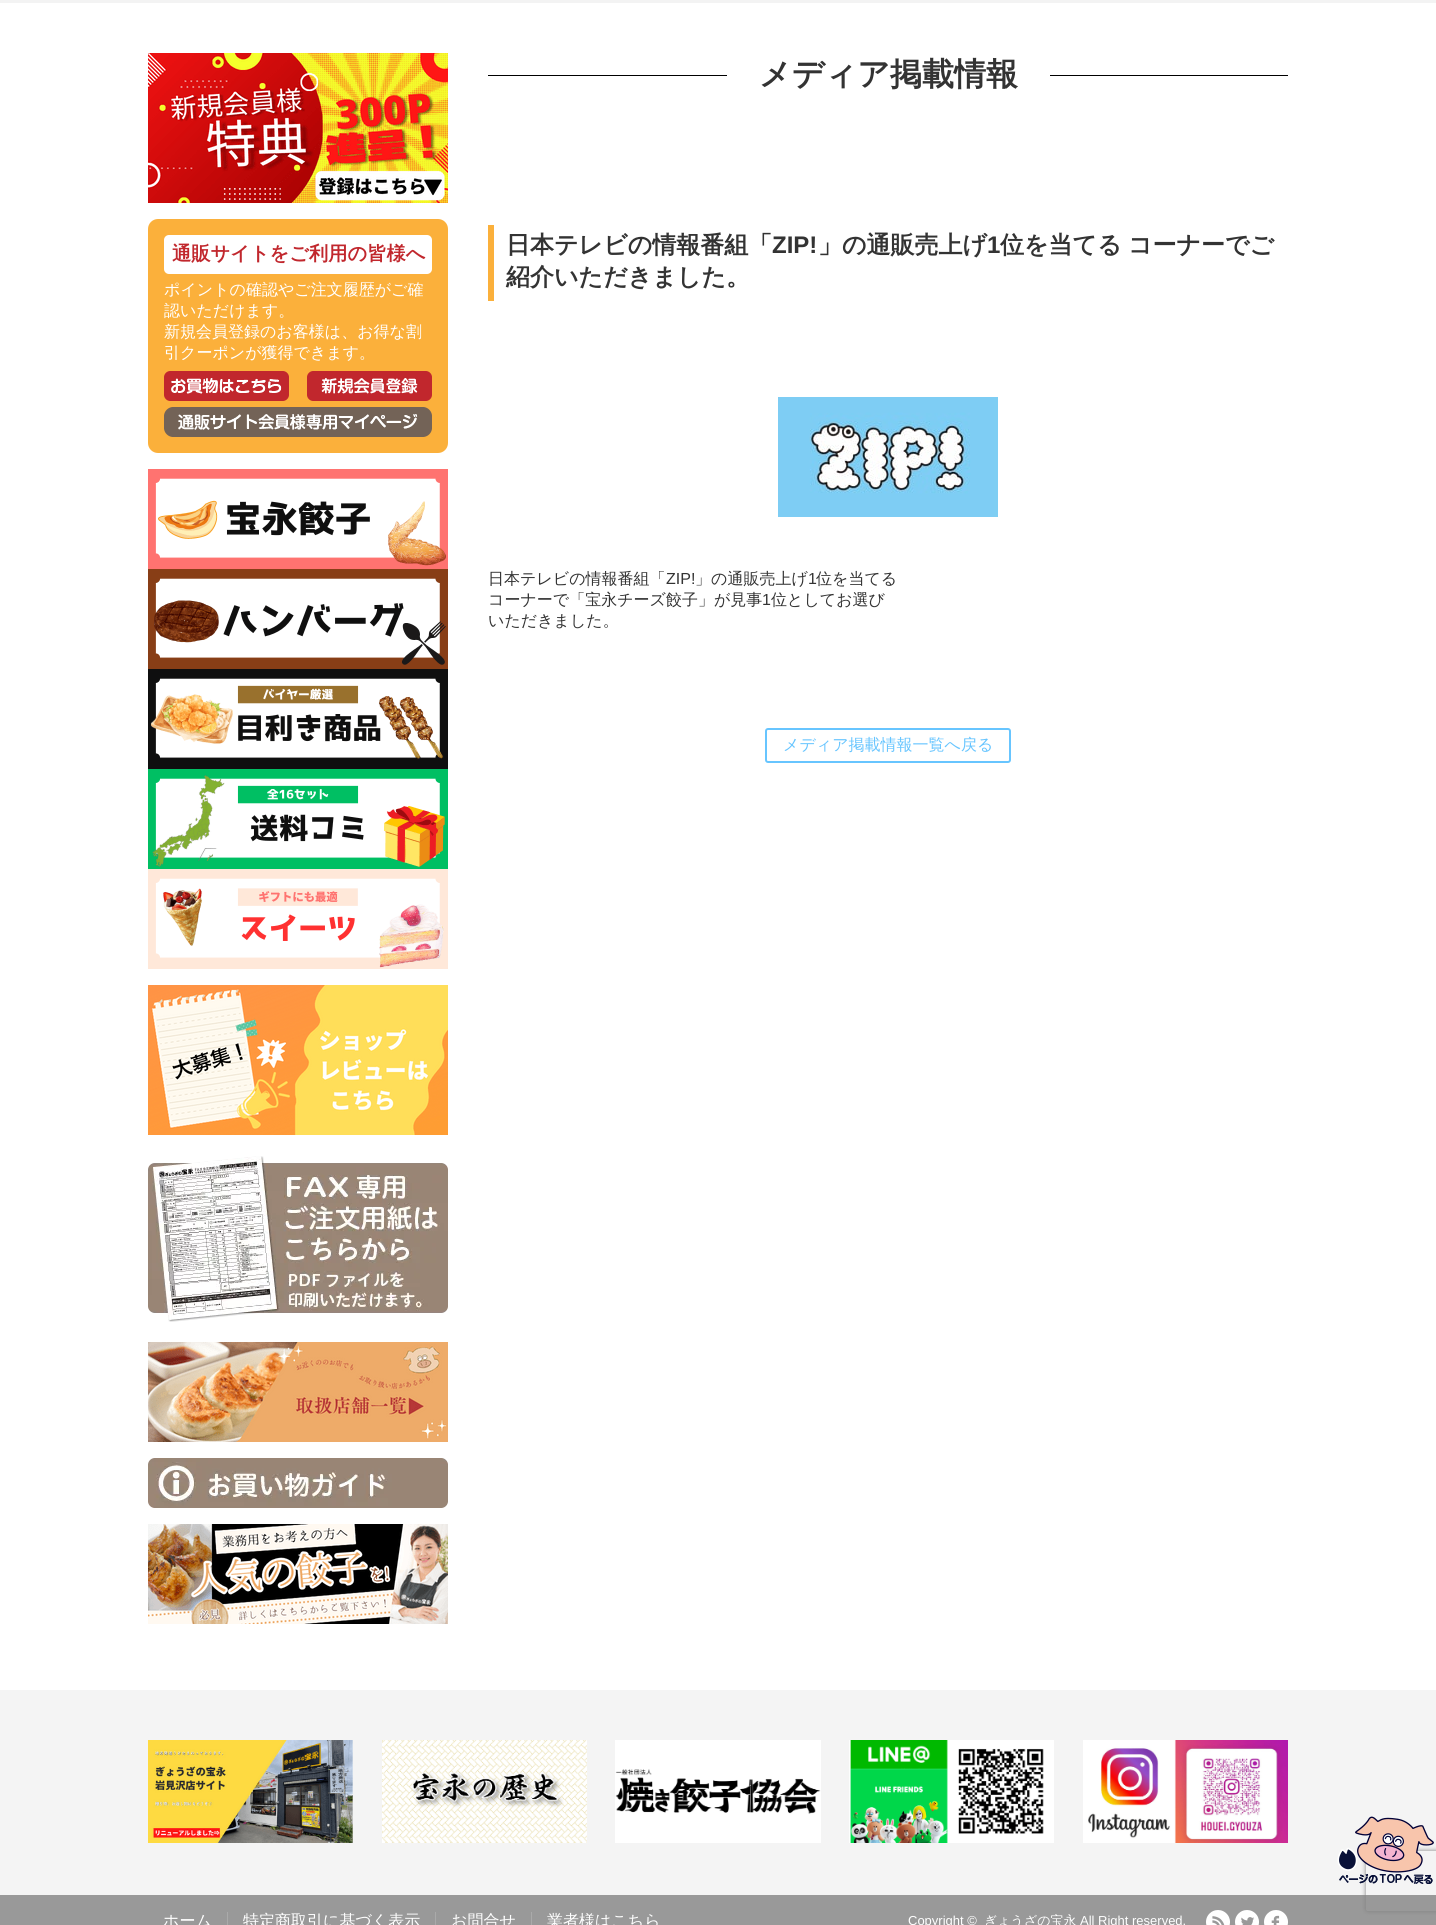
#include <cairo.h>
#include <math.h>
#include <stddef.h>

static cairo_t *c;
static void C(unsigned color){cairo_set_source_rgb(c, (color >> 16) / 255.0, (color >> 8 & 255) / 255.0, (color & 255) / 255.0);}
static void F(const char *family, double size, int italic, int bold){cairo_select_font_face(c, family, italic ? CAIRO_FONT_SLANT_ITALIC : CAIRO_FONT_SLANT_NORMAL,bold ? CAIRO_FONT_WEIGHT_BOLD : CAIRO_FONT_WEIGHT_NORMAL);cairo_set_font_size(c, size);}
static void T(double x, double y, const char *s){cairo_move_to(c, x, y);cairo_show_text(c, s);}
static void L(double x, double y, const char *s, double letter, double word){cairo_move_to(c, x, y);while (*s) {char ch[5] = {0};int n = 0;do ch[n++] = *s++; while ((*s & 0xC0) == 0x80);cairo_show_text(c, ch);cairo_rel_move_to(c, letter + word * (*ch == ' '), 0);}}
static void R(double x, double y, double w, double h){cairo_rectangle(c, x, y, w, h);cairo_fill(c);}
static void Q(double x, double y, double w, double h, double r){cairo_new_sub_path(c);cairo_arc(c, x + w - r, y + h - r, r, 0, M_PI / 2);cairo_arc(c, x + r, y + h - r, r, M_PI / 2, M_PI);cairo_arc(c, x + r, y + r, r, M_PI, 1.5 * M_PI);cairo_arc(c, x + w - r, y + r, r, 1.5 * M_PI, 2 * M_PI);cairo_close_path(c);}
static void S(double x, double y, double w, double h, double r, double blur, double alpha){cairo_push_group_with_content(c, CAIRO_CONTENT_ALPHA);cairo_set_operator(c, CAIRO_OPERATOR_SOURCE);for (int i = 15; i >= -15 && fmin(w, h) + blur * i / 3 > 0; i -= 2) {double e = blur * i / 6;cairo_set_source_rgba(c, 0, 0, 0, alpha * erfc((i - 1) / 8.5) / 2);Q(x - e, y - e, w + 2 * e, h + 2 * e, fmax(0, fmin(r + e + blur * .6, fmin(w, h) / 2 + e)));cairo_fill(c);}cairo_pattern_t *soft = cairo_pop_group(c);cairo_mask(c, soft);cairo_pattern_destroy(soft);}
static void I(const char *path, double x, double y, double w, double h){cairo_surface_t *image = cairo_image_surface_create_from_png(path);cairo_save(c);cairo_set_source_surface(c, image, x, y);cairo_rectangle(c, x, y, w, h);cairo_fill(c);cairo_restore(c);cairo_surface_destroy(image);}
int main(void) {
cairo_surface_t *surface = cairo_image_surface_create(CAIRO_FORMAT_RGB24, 1436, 1925);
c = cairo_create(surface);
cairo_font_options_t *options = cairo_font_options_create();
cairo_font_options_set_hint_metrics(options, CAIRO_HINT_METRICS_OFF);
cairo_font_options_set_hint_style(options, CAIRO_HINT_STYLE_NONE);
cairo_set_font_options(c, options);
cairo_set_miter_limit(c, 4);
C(0xffffff);
cairo_paint(c);
C(0xf3f3f3);
R(0,0,1436,3);
I("1.png",148,53,300,150);
C(0xfbb03b);
Q(148,219,300,234,10);
cairo_fill(c);
C(0xffffff);
Q(164,235,268,39,5);
cairo_fill(c);
F("WenQuanYi Zen Hei",19.25,0,1);
C(0xc1272d);
T(172,260,"通販サイトをご利用の皆様へ");
F("WenQuanYi Zen Hei Medium",16,0,0);
C(0xffffff);
T(164,295,"ポイントの確認やご注文履歴がご確");
T(164,316,"認いただけます。");
T(164,337,"新規会員登録のお客様は、お得な割");
T(164,358,"引クーポンが獲得できます。");
I("2.png",164,371,125,30);
I("3.png",307,371,125,30);
I("4.png",164,407,268,30);
I("5.png",148,469,300,100);
I("6.png",148,569,300,100);
I("7.png",148,669,300,100);
I("8.png",148,769,300,100);
I("9.png",148,869,300,100);
I("10.png",148,985,300,150);
I("11.png",148,1156,300,166);
I("12.png",148,1342,300,100);
I("13.png",148,1458,300,50);
I("14.png",148,1524,300,100);
C(0x000000);
R(488,75,239,1);
F("WenQuanYi Zen Hei",32,0,1);
C(0x333333);
T(759,85,"メディア掲載情報");
C(0x000000);
R(1050,75,238,1);
C(0xfbb03b);
R(488,225,6,76);
F("WenQuanYi Zen Hei",24,0,1);
C(0x333333);
T(506,253,"日本テレビの情報番組「");
F("Liberation Sans",24,0,1);
T(772,253,"ZIP!");
F("WenQuanYi Zen Hei",24,0,1);
T(818,253,"」の通販売上げ");
F("Liberation Sans",24,0,1);
T(987,253,"1");
F("WenQuanYi Zen Hei",24,0,1);
L(1000,253,"位を当てる コーナーでご",0,-1);
T(506,285,"紹介いただきました。");
I("15.png",778,397,220,120);
F("WenQuanYi Zen Hei Medium",16,0,0);
T(488,584,"日本テレビの情報番組「");
F("Liberation Sans",16,0,0);
T(666,584,"ZIP!");
F("WenQuanYi Zen Hei Medium",16,0,0);
T(695,584,"」の通販売上げ");
F("Liberation Sans",16,0,0);
T(808,584,"1");
F("WenQuanYi Zen Hei Medium",16,0,0);
T(816,584,"位を当てる");
T(488,605,"コーナーで「宝永チーズ餃子」が見事");
F("Liberation Sans",16,0,0);
T(762,605,"1");
F("WenQuanYi Zen Hei Medium",16,0,0);
T(771,605,"位としてお選び");
T(488,626,"いただきました。");
Q(766,729,244,33,2);
C(0x67c5ff);
cairo_stroke(c);
T(783,750,"メディア掲載情報一覧へ戻る");
C(0xf4f4f4);
R(0,1690,1436,205);
I("16.png",148,1740,205,103);
I("17.png",382,1740,205,103);
I("18.png",615,1740,206,103);
I("19.png",849,1740,205,103);
I("20.png",1083,1740,205,103);
C(0x999999);
R(0,1895,1436,30);
cairo_save(c);
cairo_set_fill_rule(c,CAIRO_FILL_RULE_EVEN_ODD);
cairo_new_path(c);
cairo_move_to(c,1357,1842);
cairo_line_to(c,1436,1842);
cairo_line_to(c,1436,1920);
cairo_line_to(c,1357,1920);
cairo_close_path(c);
cairo_move_to(c,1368,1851);
cairo_line_to(c,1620,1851);
cairo_curve_to(c,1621,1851,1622,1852,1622,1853);
cairo_line_to(c,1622,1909);
cairo_curve_to(c,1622,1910,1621,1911,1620,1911);
cairo_line_to(c,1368,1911);
cairo_curve_to(c,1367,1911,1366,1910,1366,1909);
cairo_line_to(c,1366,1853);
cairo_curve_to(c,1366,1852,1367,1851,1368,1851);
cairo_close_path(c);
cairo_clip(c);
C(0x808080);
S(1366,1851,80,60,2,2.5,1);
cairo_restore(c);
I("21.png",1337,1816,97,68);
C(0xffffff);
T(163,1926,"ホーム");
C(0xaaaaaa);
R(227,1912,1,13);
C(0xffffff);
T(243,1926,"特定商取引に基づく表示");
C(0xaaaaaa);
R(435,1912,1,13);
C(0xffffff);
T(451,1926,"お問合せ");
C(0xaaaaaa);
R(531,1912,1,13);
C(0xffffff);
T(547,1926,"業者様はこちら");
F("Liberation Sans",13,0,0);
T(908,1925,"Copyright ©");
F("WenQuanYi Zen Hei Medium",13,0,0);
T(984,1925,"ぎょうざの宝永");
F("Liberation Sans",13,0,0);
T(1080,1925,"All Right reserved.");
I("22.png",1206,1910,24,15);
I("23.png",1235,1910,24,15);
I("24.png",1264,1910,24,15);
cairo_surface_write_to_png(surface, "o.png");
cairo_font_options_destroy(options);
cairo_destroy(c);
cairo_surface_destroy(surface);
return 0;
}
